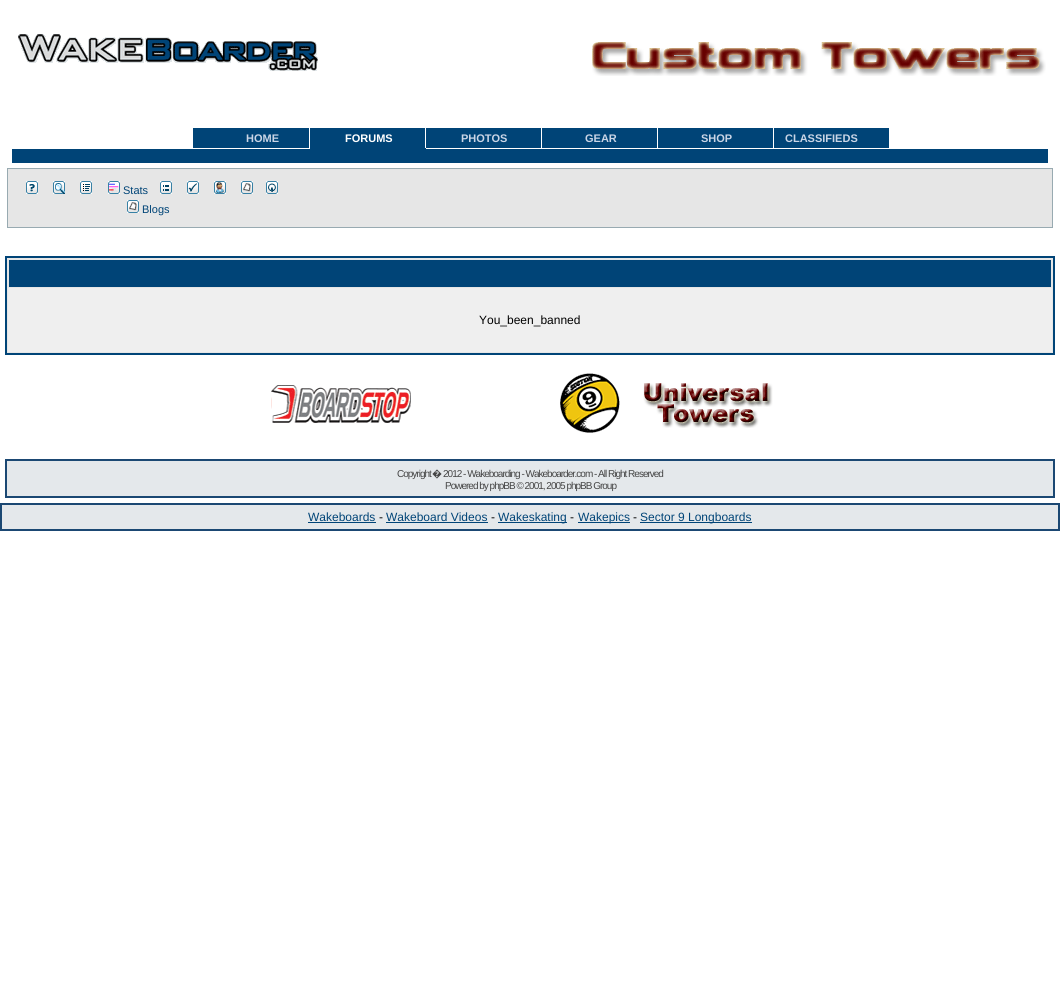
#include <cairo.h>
#include <math.h>
#include <stddef.h>

static cairo_t *c;
static void C(unsigned color){cairo_set_source_rgb(c, (color >> 16) / 255.0, (color >> 8 & 255) / 255.0, (color & 255) / 255.0);}
static void F(const char *family, double size, int italic, int bold){cairo_select_font_face(c, family, italic ? CAIRO_FONT_SLANT_ITALIC : CAIRO_FONT_SLANT_NORMAL,bold ? CAIRO_FONT_WEIGHT_BOLD : CAIRO_FONT_WEIGHT_NORMAL);cairo_set_font_size(c, size);}
static void T(double x, double y, const char *s){cairo_move_to(c, x, y);cairo_show_text(c, s);}
static void L(double x, double y, const char *s, double letter, double word){cairo_move_to(c, x, y);while (*s) {char ch[5] = {0};int n = 0;do ch[n++] = *s++; while ((*s & 0xC0) == 0x80);cairo_show_text(c, ch);cairo_rel_move_to(c, letter + word * (*ch == ' '), 0);}}
static void R(double x, double y, double w, double h){cairo_rectangle(c, x, y, w, h);cairo_fill(c);}
static void I(const char *path, double x, double y, double w, double h){cairo_surface_t *image = cairo_image_surface_create_from_png(path);cairo_save(c);cairo_set_source_surface(c, image, x, y);cairo_rectangle(c, x, y, w, h);cairo_fill(c);cairo_restore(c);cairo_surface_destroy(image);}
int main(void) {
cairo_surface_t *surface = cairo_image_surface_create(CAIRO_FORMAT_RGB24, 1060, 1003);
c = cairo_create(surface);
cairo_font_options_t *options = cairo_font_options_create();
cairo_font_options_set_hint_metrics(options, CAIRO_HINT_METRICS_OFF);
cairo_font_options_set_hint_style(options, CAIRO_HINT_STYLE_NONE);
cairo_set_font_options(c, options);
cairo_set_miter_limit(c, 4);
C(0xffffff);
cairo_paint(c);
I("1.png",18,34,300,37);
I("2.png",592,42,454,34);
C(0x004477);
R(193,128,116,20);
F("Liberation Sans",11,0,1);
C(0xcad5e6);
T(246,142,"HOME");
C(0x004477);
R(310,128,116,21);
C(0xffffff);
T(345,142,"FORUMS");
C(0x004477);
R(426,128,115,20);
C(0xffffff);
R(425,128,1,20);
C(0xcad5e6);
T(461,142,"PHOTOS");
C(0x004477);
R(542,128,115,20);
C(0xcad5e6);
T(585,142,"GEAR");
C(0x004477);
R(658,128,115,20);
C(0xcad5e6);
T(701,142,"SHOP");
C(0x004477);
R(774,128,115,20);
C(0xcad5e6);
T(785,142,"CLASSIFIEDS");
C(0x004477);
R(12,149,1036,14);
C(0xe6e6e6);
cairo_rectangle(c,7.5,168.5,1045,59);
cairo_fill_preserve(c);
C(0x98aab1);
cairo_set_line_width(c,1);
cairo_stroke(c);
I("3.png",26,181,12,13);
I("4.png",53,181,12,13);
I("5.png",80,181,12,13);
I("6.png",108,181,12,13);
F("Liberation Sans",11,0,0);
C(0x004477);
T(123,194,"Stats");
I("7.png",160,181,12,13);
I("8.png",187,181,12,13);
I("9.png",214,181,12,13);
I("10.png",241,181,12,13);
I("11.png",266,181,12,13);
I("10.png",127,200,12,13);
T(142,213,"Blogs");
C(0xe6e6e6);
cairo_rectangle(c,6,257,1048,97);
cairo_fill_preserve(c);
C(0x004477);
cairo_set_line_width(c,2);
cairo_stroke(c);
R(9,260,1042,27);
C(0xefefef);
R(8,288,1044,64);
F("Liberation Sans",12,0,0);
C(0x000000);
T(479,324,"You_been_banned");
I("12.png",271,385,140,38);
I("13.png",560,373,60,60);
I("14.png",643,383,130,45);
C(0x1b4873);
R(5,459,1050,39);
C(0xe4e8eb);
R(7,461,1046,35);
F("Liberation Sans",10,0,0);
C(0x444444);
L(397,477,"Copyright",-1,0);
F("Noto Sans",10,0,0);
L(432,477,"�",-1,0);
F("Liberation Sans",10,0,0);
L(443,477,"2012 - Wakeboarding - Wakeboarder.com - All Right Reserved",-1,0);
L(445,489,"Powered by phpBB © 2001, 2005 phpBB Group",-1,0);
C(0x1b4873);
R(0,503,1060,28);
C(0xe4e8eb);
R(2,505,1056,24);
F("Liberation Sans",12,0,0);
C(0x004477);
T(308,521,"Wakeboards");
R(308,522,68,1);
C(0x000000);
T(379,521,"-");
C(0x004477);
T(386,521,"Wakeboard Videos");
R(386,522,102,1);
C(0x000000);
T(491,521,"-");
C(0x004477);
R(498,522,69,1);
T(498,521,"Wakeskating");
C(0x000000);
T(570,521,"-");
C(0x004477);
R(578,522,52,1);
T(578,521,"Wakepics");
C(0x000000);
T(633,521,"-");
C(0x004477);
R(640,522,112,1);
T(640,521,"Sector 9 Longboards");
cairo_surface_write_to_png(surface, "o.png");
cairo_font_options_destroy(options);
cairo_destroy(c);
cairo_surface_destroy(surface);
return 0;
}
